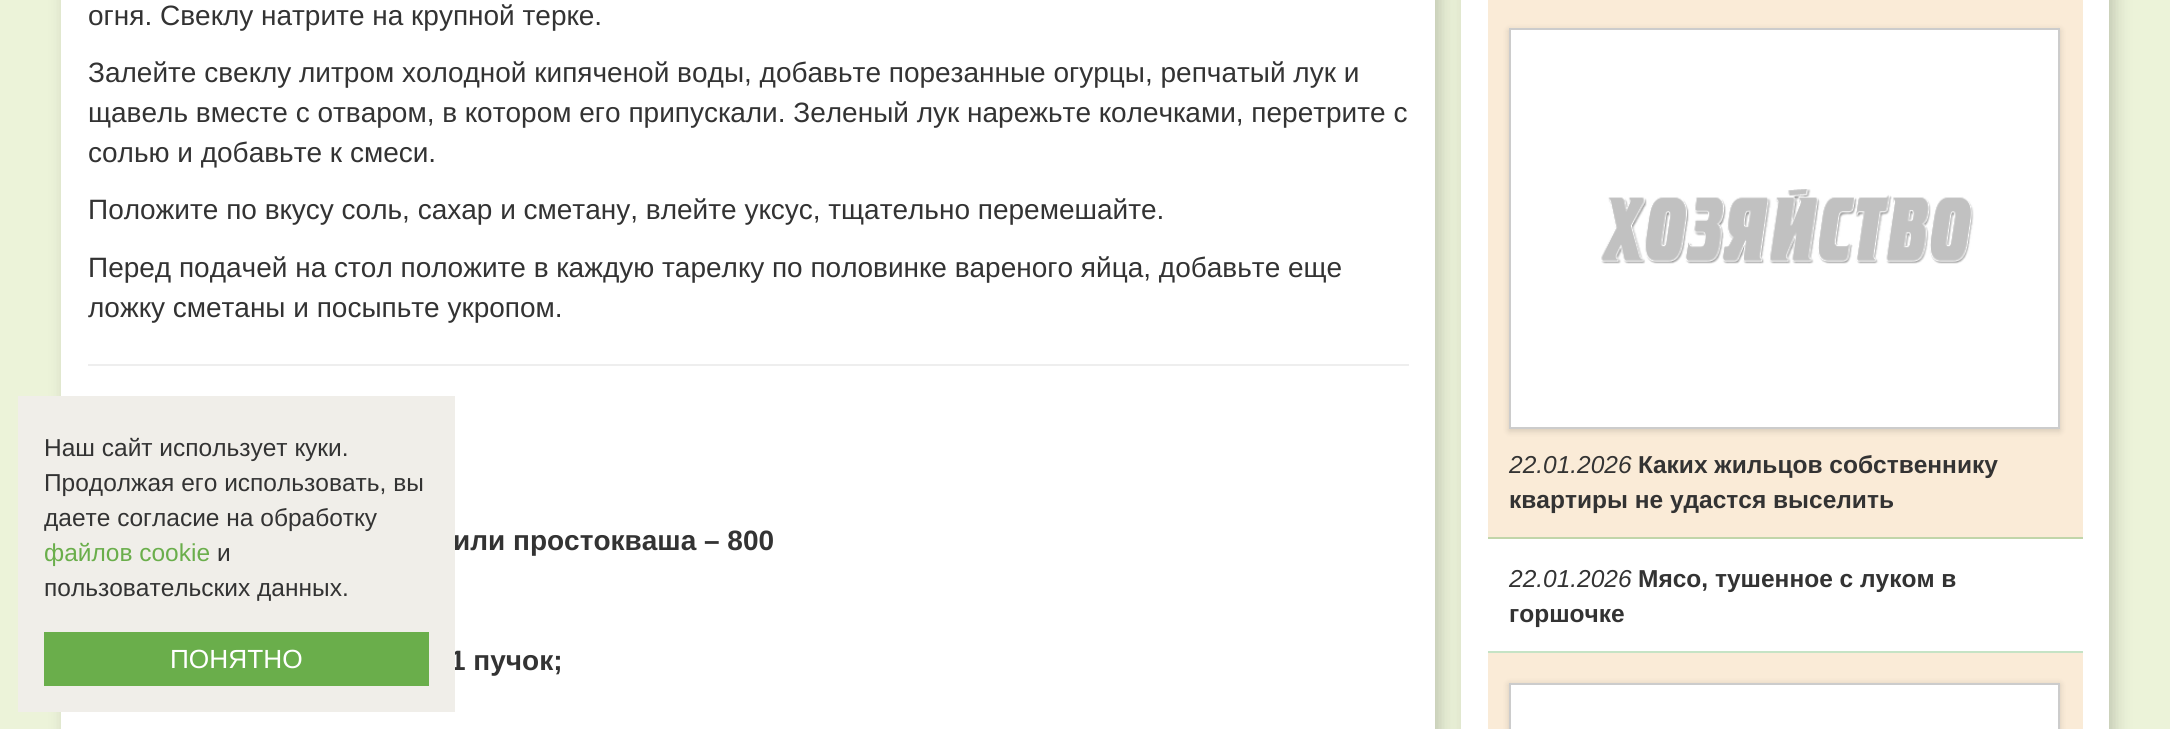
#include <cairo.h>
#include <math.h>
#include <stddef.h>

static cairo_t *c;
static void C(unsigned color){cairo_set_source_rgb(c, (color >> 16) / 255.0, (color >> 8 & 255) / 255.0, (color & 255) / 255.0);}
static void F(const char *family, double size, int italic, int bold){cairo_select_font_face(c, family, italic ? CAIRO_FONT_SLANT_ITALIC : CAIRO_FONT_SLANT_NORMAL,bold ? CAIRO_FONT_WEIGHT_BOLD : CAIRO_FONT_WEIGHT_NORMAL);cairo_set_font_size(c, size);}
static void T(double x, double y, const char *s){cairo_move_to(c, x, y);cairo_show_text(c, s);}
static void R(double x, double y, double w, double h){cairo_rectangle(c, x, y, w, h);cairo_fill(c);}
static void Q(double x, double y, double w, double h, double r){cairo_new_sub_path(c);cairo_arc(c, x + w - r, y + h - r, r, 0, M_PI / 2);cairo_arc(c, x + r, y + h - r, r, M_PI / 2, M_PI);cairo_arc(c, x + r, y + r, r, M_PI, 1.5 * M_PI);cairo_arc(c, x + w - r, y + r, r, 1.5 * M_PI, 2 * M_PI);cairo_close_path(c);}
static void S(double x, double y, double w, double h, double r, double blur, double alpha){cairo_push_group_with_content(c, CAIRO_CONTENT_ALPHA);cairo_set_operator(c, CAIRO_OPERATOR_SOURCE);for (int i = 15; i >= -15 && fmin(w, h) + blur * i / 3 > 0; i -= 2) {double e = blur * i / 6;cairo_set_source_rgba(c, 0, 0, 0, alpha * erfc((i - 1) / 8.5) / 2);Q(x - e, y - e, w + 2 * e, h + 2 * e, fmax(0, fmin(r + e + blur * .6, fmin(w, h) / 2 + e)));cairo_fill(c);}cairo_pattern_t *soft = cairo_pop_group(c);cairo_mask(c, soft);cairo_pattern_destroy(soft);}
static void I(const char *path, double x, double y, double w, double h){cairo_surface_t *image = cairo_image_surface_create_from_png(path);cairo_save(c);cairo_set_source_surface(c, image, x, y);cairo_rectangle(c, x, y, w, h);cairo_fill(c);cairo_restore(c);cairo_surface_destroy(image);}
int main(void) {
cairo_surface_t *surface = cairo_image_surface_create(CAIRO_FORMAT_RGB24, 2170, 729);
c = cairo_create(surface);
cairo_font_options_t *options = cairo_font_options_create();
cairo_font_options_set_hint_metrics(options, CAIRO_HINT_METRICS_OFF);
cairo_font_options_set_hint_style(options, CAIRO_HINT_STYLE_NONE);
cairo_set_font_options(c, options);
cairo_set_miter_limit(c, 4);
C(0xecf3d9);
cairo_paint(c);
C(0x000000);
S(67,-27,1373,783,0,9,.2);
C(0xffffff);
R(61,0,1374,729);
F("Liberation Sans",28,0,0);
C(0x333333);
T(88,25,"огня. Свеклу натрите на крупной терке.");
T(88,82,"Залейте свеклу литром холодной кипяченой воды, добавьте порезанные огурцы, репчатый лук и");
T(88,122,"щавель вместе с отваром, в котором его припускали. Зеленый лук нарежьте колечками, перетрите с");
T(88,162,"солью и добавьте к смеси.");
T(88,219,"Положите по вкусу соль, сахар и сметану, влейте уксус, тщательно перемешайте.");
T(88,277,"Перед подачей на стол положите в каждую тарелку по половинке вареного яйца, добавьте еще");
T(88,317,"ложку сметаны и посыпьте укропом.");
C(0xeeeeee);
R(88,364,1321,2);
F("Liberation Sans",28,0,1);
C(0x333333);
T(453,550,"или простокваша – 800");
T(450,670,"1 пучок;");
C(0x000000);
S(1467,-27,647,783,0,9,.2);
C(0xffffff);
R(1461,0,648,729);
C(0xfaebd7);
R(1488,0,595,537);
C(0xc1d5a9);
R(1488,537,595,2);
C(0x000000);
S(1509,30,551,401,0,3.5,.15);
C(0xffffff);
cairo_rectangle(c,1510,29,549,399);
cairo_fill_preserve(c);
C(0xcccccc);
cairo_stroke(c);
I("1.png",1601,189,373,75);
F("Liberation Sans",24.5,1,0);
C(0x333333);
T(1509,473,"22.01.2026");
F("Liberation Sans",24.5,0,1);
T(1638,473,"Каких жильцов собственнику");
T(1509,508,"квартиры не удастся выселить");
C(0xc5e3c5);
R(1488,651,595,2);
F("Liberation Sans",24.5,1,0);
C(0x333333);
T(1509,587,"22.01.2026");
F("Liberation Sans",24.5,0,1);
T(1638,587,"Мясо, тушенное с луком в");
T(1509,622,"горшочке");
C(0xfaebd7);
R(1488,653,595,76);
C(0x000000);
S(1509,684,551,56,0,3.5,.15);
C(0xffffff);
cairo_rectangle(c,1510,684,549,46);
cairo_fill_preserve(c);
C(0xcccccc);
cairo_stroke(c);
C(0xf0eee9);
R(18,396,437,316);
F("Liberation Sans",24.5,0,0);
C(0x333333);
T(44,456,"Наш сайт использует куки.");
T(44,491,"Продолжая его использовать, вы");
T(44,526,"даете согласие на обработку");
C(0x6aae4b);
T(44,561,"файлов cookie");
C(0x333333);
T(217,561,"и");
T(44,596,"пользовательских данных.");
C(0x6aae4b);
R(44,632,385,54);
F("Liberation Sans",26.25,0,0);
C(0xffffff);
T(170,668,"ПОНЯТНО");
cairo_surface_write_to_png(surface, "o.png");
cairo_font_options_destroy(options);
cairo_destroy(c);
cairo_surface_destroy(surface);
return 0;
}
